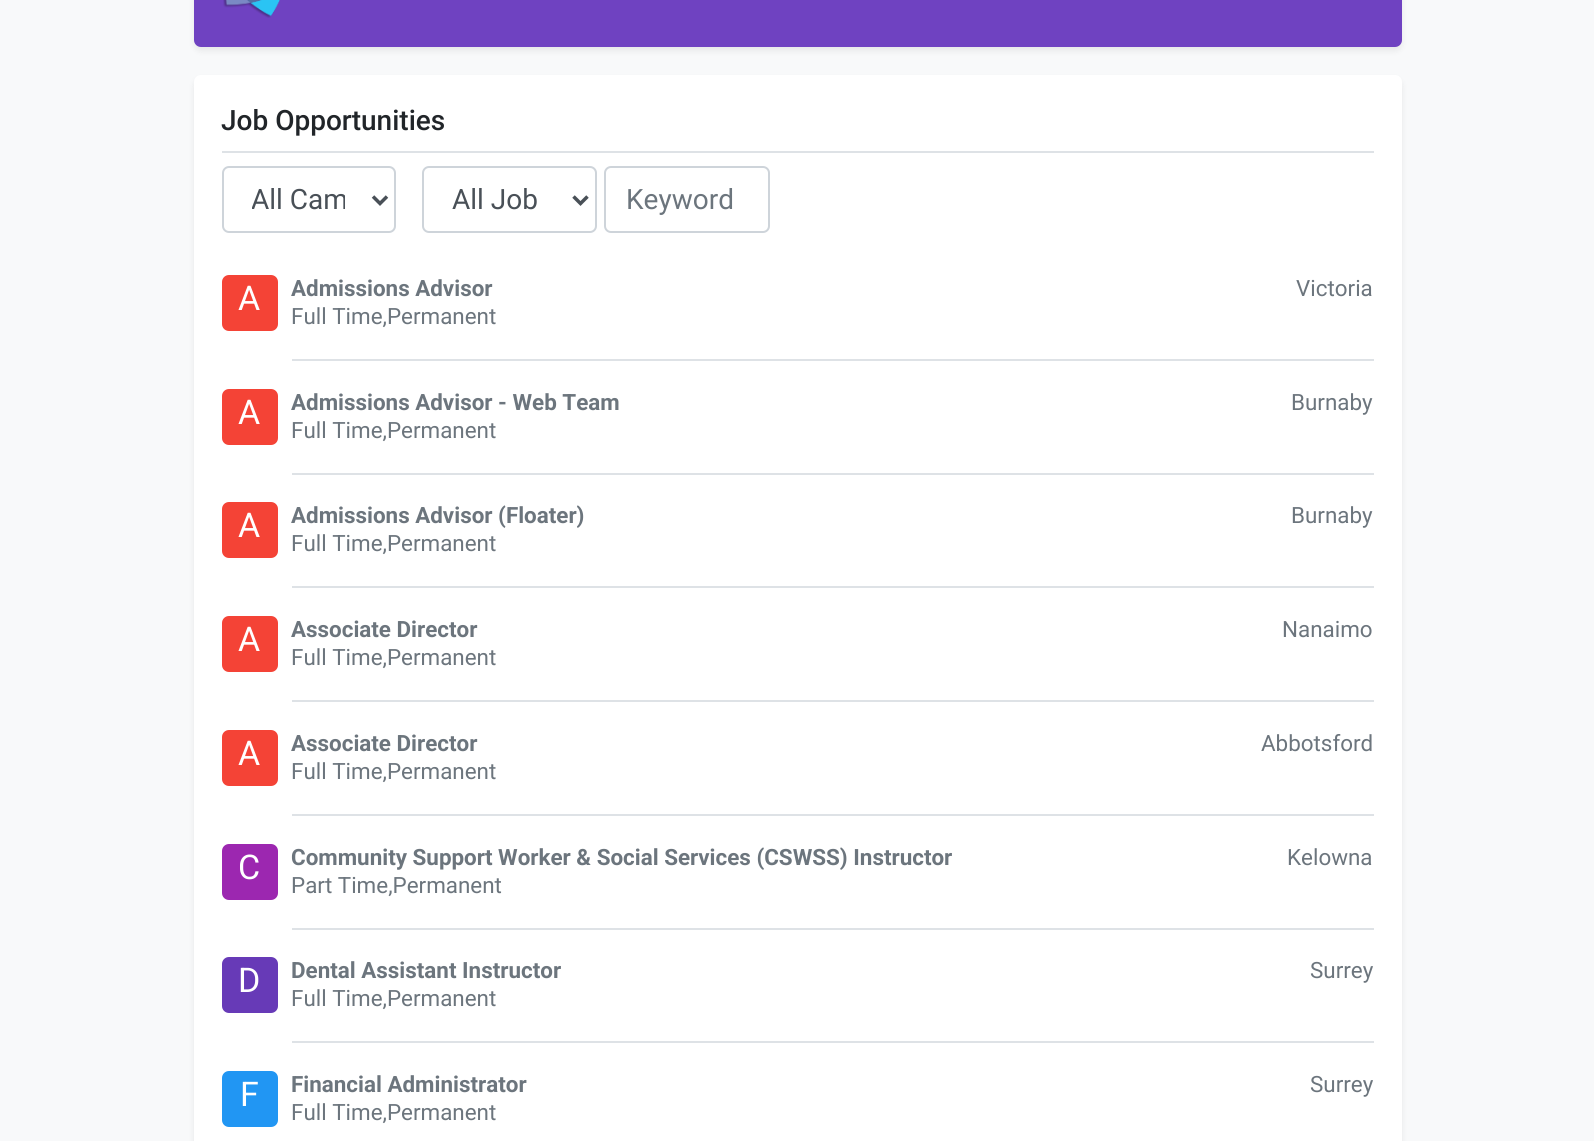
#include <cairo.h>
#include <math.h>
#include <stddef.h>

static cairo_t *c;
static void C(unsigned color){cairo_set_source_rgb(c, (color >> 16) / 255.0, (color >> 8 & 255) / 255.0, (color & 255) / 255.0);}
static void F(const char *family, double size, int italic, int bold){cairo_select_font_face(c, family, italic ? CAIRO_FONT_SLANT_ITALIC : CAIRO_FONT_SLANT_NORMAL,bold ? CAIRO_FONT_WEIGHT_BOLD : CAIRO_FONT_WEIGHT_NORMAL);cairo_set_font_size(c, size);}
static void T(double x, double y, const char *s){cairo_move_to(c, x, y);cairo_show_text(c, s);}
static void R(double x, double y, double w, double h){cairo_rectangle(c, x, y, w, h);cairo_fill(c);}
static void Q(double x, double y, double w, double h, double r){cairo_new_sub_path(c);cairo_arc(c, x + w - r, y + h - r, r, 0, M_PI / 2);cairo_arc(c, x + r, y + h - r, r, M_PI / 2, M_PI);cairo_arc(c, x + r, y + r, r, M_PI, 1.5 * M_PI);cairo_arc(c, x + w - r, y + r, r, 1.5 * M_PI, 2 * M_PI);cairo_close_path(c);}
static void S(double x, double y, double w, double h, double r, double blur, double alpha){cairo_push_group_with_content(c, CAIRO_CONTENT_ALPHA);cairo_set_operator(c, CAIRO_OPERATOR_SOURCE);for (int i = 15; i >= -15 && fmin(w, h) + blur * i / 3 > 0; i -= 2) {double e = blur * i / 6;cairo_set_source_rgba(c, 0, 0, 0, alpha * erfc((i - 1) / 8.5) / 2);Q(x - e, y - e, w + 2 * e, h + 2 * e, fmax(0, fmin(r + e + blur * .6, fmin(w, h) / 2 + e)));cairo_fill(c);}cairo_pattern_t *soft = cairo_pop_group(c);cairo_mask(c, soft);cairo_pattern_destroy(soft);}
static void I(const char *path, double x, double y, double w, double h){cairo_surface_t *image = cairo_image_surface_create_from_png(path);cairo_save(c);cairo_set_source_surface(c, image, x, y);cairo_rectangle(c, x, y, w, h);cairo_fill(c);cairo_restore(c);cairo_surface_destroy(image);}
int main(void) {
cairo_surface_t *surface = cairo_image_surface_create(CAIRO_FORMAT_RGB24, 1594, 1141);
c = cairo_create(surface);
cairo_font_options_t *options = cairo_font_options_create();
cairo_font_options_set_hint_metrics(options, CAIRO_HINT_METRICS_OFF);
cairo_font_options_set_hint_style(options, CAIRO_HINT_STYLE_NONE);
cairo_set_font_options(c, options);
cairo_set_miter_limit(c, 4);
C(0xf8f9fa);
cairo_paint(c);
C(0x000000);
S(194,-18,1208,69,7,3.5,.07);
C(0x6f42c1);
Q(194,-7,1208,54,7);
cairo_fill(c);
I("1.png",223,0,57,18);
C(0x000000);
S(194,79,1208,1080,7,3.5,.07);
C(0xffffff);
Q(194,75,1208,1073,7);
cairo_fill(c);
C(0xdee2e6);
R(222,151,1152,2);
F("Roboto Medium",28,0,0);
C(0x212529);
T(221,130,"Job Opportunities");
Q(223,167,172,65,6);
C(0xced4da);
cairo_stroke(c);
cairo_new_path(c);
cairo_move_to(c,373,196.5);
cairo_line_to(c,380,203.5);
cairo_line_to(c,387,196.5);
C(0x495057);
cairo_set_line_width(c,3.5);
cairo_stroke(c);
cairo_save(c);
cairo_rectangle(c,252,182,93,37);
cairo_clip(c);
F("Roboto",28,0,0);
T(251,209,"All Cam");
cairo_restore(c);
Q(423,167,173,65,6);
C(0xced4da);
cairo_set_line_width(c,2);
cairo_stroke(c);
cairo_new_path(c);
cairo_move_to(c,573.5,196.5);
cairo_line_to(c,580.5,203.5);
cairo_line_to(c,587.5,196.5);
C(0x495057);
cairo_set_line_width(c,3.5);
cairo_stroke(c);
F("Roboto",28,0,0);
T(452,209,"All Job");
Q(605,167,164,65,6);
C(0xced4da);
cairo_set_line_width(c,2);
cairo_stroke(c);
C(0x6c757d);
T(626,209,"Keyword");
C(0xf44336);
Q(222,275,56,56,7);
cairo_fill(c);
F("Roboto",34,0,0);
C(0xffffff);
T(238,310,"A");
C(0xdee2e6);
R(292,359,1082,2);
F("Roboto",22.4,0,1);
C(0x6c757d);
T(291,296,"Admissions Advisor");
F("Roboto",22.4,0,0);
T(291,324,"Full Time,Permanent");
T(1296,296,"Victoria");
C(0xf44336);
Q(222,389,56,56,7);
cairo_fill(c);
F("Roboto",34,0,0);
C(0xffffff);
T(238,424,"A");
C(0xdee2e6);
R(292,473,1082,2);
F("Roboto",22.4,0,1);
C(0x6c757d);
T(291,410,"Admissions Advisor - Web Team");
F("Roboto",22.4,0,0);
T(291,438,"Full Time,Permanent");
T(1291,410,"Burnaby");
C(0xf44336);
Q(222,502,56,56,7);
cairo_fill(c);
F("Roboto",34,0,0);
C(0xffffff);
T(238,537,"A");
C(0xdee2e6);
R(292,586,1082,2);
F("Roboto",22.4,0,1);
C(0x6c757d);
T(291,523,"Admissions Advisor (Floater)");
F("Roboto",22.4,0,0);
T(291,551,"Full Time,Permanent");
T(1291,523,"Burnaby");
C(0xf44336);
Q(222,616,56,56,7);
cairo_fill(c);
F("Roboto",34,0,0);
C(0xffffff);
T(238,651,"A");
C(0xdee2e6);
R(292,700,1082,2);
F("Roboto",22.4,0,1);
C(0x6c757d);
T(291,637,"Associate Director");
F("Roboto",22.4,0,0);
T(291,665,"Full Time,Permanent");
T(1282,637,"Nanaimo");
C(0xf44336);
Q(222,730,56,56,7);
cairo_fill(c);
F("Roboto",34,0,0);
C(0xffffff);
T(238,765,"A");
C(0xdee2e6);
R(292,814,1082,2);
F("Roboto",22.4,0,1);
C(0x6c757d);
T(291,751,"Associate Director");
F("Roboto",22.4,0,0);
T(291,779,"Full Time,Permanent");
T(1261,751,"Abbotsford");
C(0x9c27b0);
Q(222,844,56,56,7);
cairo_fill(c);
F("Roboto",34,0,0);
C(0xffffff);
T(238,879,"C");
C(0xdee2e6);
R(292,928,1082,2);
F("Roboto",22.4,0,1);
C(0x6c757d);
T(291,865,"Community Support Worker & Social Services (CSWSS) Instructor");
F("Roboto",22.4,0,0);
T(291,893,"Part Time,Permanent");
T(1287,865,"Kelowna");
C(0x673ab7);
Q(222,957,56,56,7);
cairo_fill(c);
F("Roboto",34,0,0);
C(0xffffff);
T(238,992,"D");
C(0xdee2e6);
R(292,1041,1082,2);
F("Roboto",22.4,0,1);
C(0x6c757d);
T(291,978,"Dental Assistant Instructor");
F("Roboto",22.4,0,0);
T(291,1006,"Full Time,Permanent");
T(1310,978,"Surrey");
C(0x2196f3);
Q(222,1071,56,56,7);
cairo_fill(c);
F("Roboto",34,0,0);
C(0xffffff);
T(240,1106,"F");
F("Roboto",22.4,0,1);
C(0x6c757d);
T(291,1092,"Financial Administrator");
F("Roboto",22.4,0,0);
T(291,1120,"Full Time,Permanent");
T(1310,1092,"Surrey");
cairo_surface_write_to_png(surface, "o.png");
cairo_font_options_destroy(options);
cairo_destroy(c);
cairo_surface_destroy(surface);
return 0;
}
